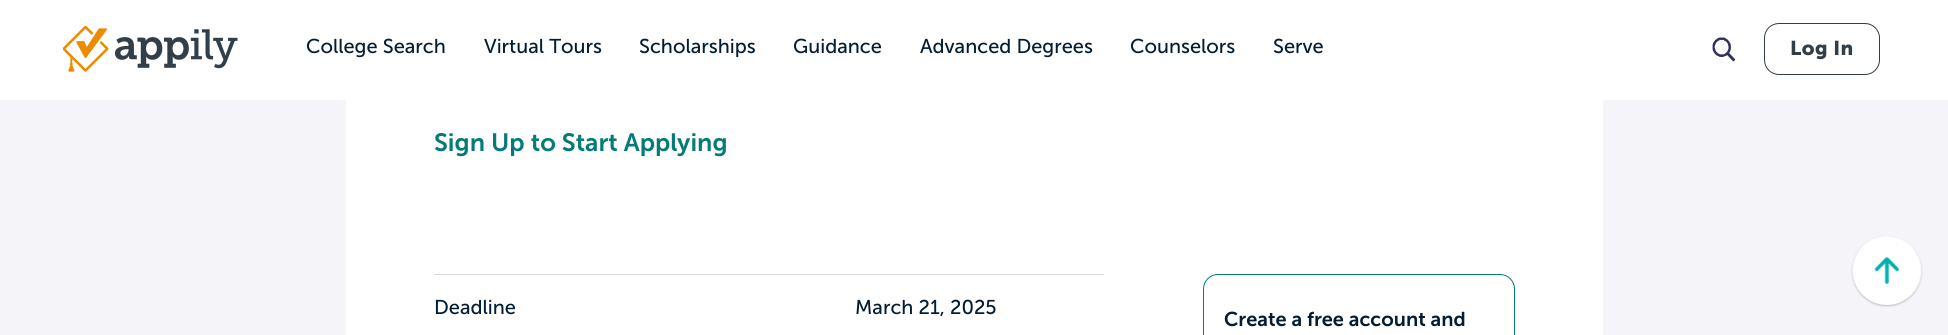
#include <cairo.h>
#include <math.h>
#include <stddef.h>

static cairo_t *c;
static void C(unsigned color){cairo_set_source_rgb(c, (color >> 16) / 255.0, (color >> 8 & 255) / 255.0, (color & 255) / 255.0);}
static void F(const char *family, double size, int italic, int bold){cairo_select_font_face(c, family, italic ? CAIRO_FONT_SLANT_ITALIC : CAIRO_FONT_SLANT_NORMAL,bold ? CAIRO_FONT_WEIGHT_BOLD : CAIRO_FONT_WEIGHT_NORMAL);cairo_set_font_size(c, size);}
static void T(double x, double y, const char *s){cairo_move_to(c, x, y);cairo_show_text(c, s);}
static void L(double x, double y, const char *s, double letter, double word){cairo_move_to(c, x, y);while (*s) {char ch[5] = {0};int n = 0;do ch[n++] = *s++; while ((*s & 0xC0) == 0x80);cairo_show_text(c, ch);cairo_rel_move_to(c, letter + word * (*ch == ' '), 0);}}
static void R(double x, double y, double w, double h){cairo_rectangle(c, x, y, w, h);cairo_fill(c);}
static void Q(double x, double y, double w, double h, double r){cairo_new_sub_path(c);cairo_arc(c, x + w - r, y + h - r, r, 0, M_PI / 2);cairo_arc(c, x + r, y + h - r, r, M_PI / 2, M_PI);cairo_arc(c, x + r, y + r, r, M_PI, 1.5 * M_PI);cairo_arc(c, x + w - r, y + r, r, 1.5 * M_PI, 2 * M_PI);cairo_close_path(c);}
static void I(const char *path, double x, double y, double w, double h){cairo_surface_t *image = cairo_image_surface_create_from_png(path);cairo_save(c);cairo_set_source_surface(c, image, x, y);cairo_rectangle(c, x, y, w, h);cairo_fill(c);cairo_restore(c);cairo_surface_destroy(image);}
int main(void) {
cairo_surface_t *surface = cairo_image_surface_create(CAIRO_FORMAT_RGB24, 1948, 335);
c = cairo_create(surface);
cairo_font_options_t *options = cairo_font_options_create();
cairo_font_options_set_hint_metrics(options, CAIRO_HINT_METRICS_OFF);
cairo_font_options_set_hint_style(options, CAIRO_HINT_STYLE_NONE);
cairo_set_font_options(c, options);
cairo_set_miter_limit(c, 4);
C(0xf5f5f9);
cairo_paint(c);
C(0xffffff);
R(0,0,1948,100);
I("1.png",63,26,175,46);
F("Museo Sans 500",20,0,0);
C(0x031d32);
T(306,53,"College Search");
T(484,53,"Virtual Tours");
T(639,53,"Scholarships");
T(793,53,"Guidance");
T(920,53,"Advanced Degrees");
T(1130,53,"Counselors");
T(1273,53,"Serve");
I("2.png",1712,37,23,25);
Q(1764.5,23.5,115,51,14.5);
C(0x333f48);
cairo_set_line_width(c,1);
cairo_stroke(c);
F("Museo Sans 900",20,0,1);
L(1790,55,"Log In",.5,0);
C(0xffffff);
R(346,100,1257,235);
F("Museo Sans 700 SemiBold",25,0,0);
C(0x037b79);
T(434,151,"Sign Up to Start Applying");
C(0xd8d7d8);
R(434,274,670,1);
F("Museo Sans 500",20,0,0);
C(0x031d32);
T(434,314,"Deadline");
T(855,314,"March 21, 2025");
Q(1203.5,274.5,311,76,14.5);
C(0x037b79);
cairo_stroke(c);
F("Museo Sans 700 SemiBold",20,0,0);
C(0x031d32);
T(1224,326,"Create a free account and");
I("3.png",1851,236,72,71);
cairo_surface_write_to_png(surface, "o.png");
cairo_font_options_destroy(options);
cairo_destroy(c);
cairo_surface_destroy(surface);
return 0;
}
